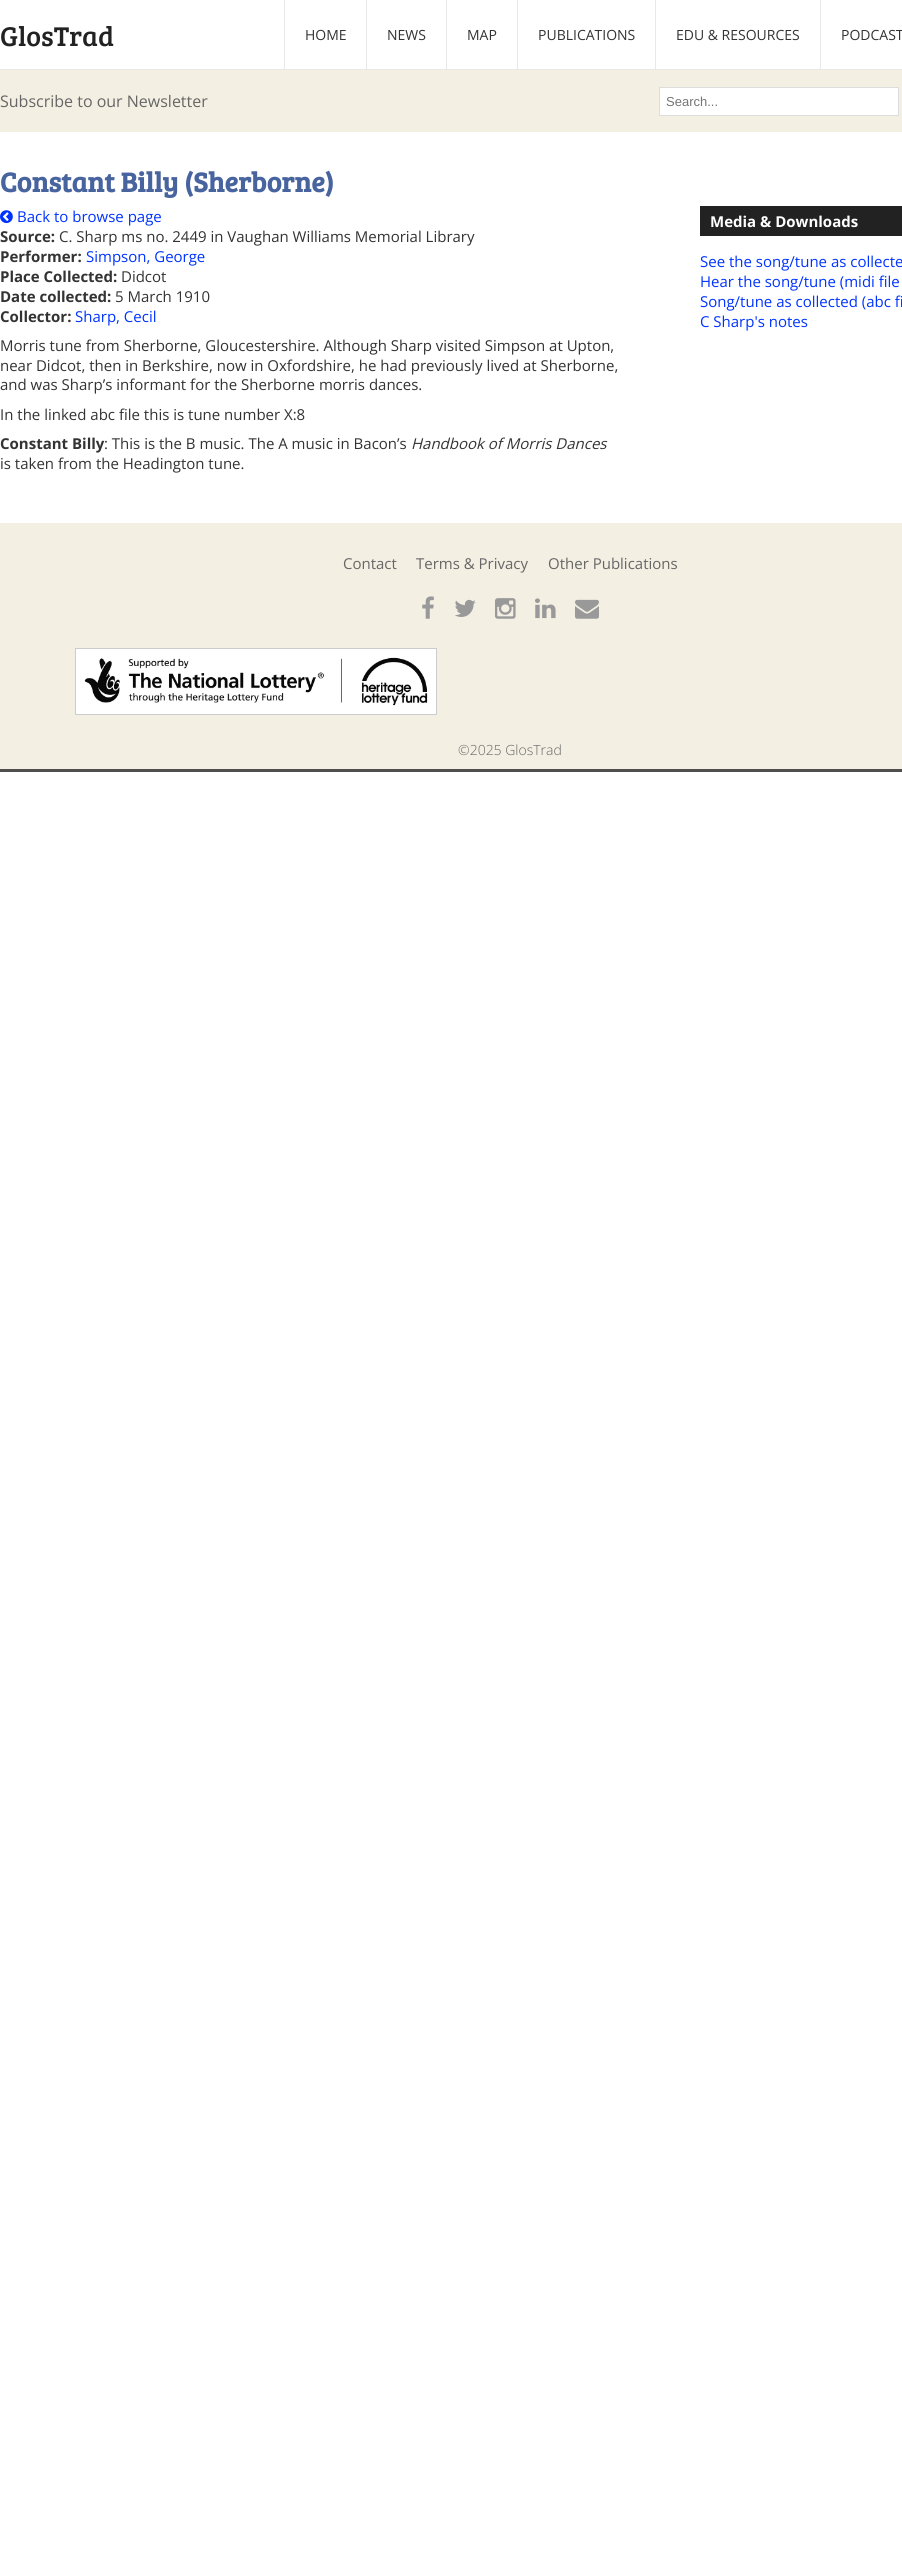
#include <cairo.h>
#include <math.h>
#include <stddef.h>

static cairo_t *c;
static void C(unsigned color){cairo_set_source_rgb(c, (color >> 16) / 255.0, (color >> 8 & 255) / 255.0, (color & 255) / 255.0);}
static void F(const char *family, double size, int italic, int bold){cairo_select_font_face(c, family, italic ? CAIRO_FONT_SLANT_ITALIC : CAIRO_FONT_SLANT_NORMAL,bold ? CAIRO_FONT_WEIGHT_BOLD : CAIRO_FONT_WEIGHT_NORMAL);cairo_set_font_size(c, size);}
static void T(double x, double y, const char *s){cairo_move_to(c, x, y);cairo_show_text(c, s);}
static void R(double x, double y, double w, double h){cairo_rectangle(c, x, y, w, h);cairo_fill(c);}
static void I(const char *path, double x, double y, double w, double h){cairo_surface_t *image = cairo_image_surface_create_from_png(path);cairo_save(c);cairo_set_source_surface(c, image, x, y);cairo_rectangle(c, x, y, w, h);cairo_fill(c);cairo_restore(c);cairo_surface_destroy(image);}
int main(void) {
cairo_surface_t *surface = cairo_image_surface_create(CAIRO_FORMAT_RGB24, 902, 2571);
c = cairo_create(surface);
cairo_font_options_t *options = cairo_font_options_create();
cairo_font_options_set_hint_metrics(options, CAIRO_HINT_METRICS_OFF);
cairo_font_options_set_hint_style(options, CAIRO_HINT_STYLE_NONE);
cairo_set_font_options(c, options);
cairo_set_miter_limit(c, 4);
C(0xffffff);
cairo_paint(c);
C(0xe8e8e8);
R(0,69,902,1);
F("Bree Serif",28,0,0);
C(0x222222);
T(0,46,"GlosTrad");
C(0xe8e8e8);
R(284,0,1,70);
R(366,0,1,70);
F("Open Sans",14,0,0);
C(0x333333);
T(305,40,"HOME");
C(0xe8e8e8);
R(446,0,1,70);
C(0x333333);
T(387,40,"NEWS");
C(0xe8e8e8);
R(517,0,1,70);
C(0x333333);
T(467,40,"MAP");
C(0xe8e8e8);
R(655,0,1,70);
C(0x333333);
T(538,40,"PUBLICATIONS");
C(0xe8e8e8);
R(820,0,1,70);
C(0x333333);
T(676,40,"EDU & RESOURCES");
T(841,40,"PODCAST");
C(0xf3efe3);
R(0,70,902,62);
F("Open Sans",16,0,0);
C(0x666666);
T(0,107,"Subscribe to our Newsletter");
C(0xffffff);
cairo_rectangle(c,659.5,87.5,239,28);
cairo_fill_preserve(c);
C(0xdddddd);
cairo_set_line_width(c,1);
cairo_stroke(c);
F("Liberation Sans",13,0,0);
C(0x757575);
T(666,106,"Search...");
F("Bree Serif",28,0,1);
C(0x48649f);
T(0,192,"Constant Billy (Sherborne)");
I("1.png",0,210,13,14);
F("Open Sans",15,0,0);
C(0x0033ff);
T(17,222,"Back to browse page");
F("Open Sans",15,0,1);
C(0x333333);
T(0,242,"Source:");
F("Open Sans",15,0,0);
T(59,242,"C. Sharp ms no. 2449 in Vaughan Williams Memorial Library");
F("Open Sans",15,0,1);
T(0,262,"Performer:");
F("Open Sans",15,0,0);
C(0x0033ff);
T(86,262,"Simpson, George");
F("Open Sans",15,0,1);
C(0x333333);
T(0,282,"Place Collected:");
F("Open Sans",15,0,0);
T(121,282,"Didcot");
F("Open Sans",15,0,1);
T(0,302,"Date collected:");
F("Open Sans",15,0,0);
T(115,302,"5 March 1910");
F("Open Sans",15,0,1);
T(0,322,"Collector:");
F("Open Sans",15,0,0);
C(0x0033ff);
T(75,322,"Sharp, Cecil");
C(0x333333);
T(0,351,"Morris tune from Sherborne, Gloucestershire. Although Sharp visited Simpson at Upton,");
T(0,371,"near Didcot, then in Berkshire, now in Oxfordshire, he had previously lived at Sherborne,");
T(0,390,"and was Sharp’s informant for the Sherborne morris dances.");
T(0,420,"In the linked abc file this is tune number X:8");
F("Open Sans",15,0,1);
T(0,449,"Constant Billy");
F("Open Sans",15,0,0);
T(104,449,": This is the B music. The A music in Bacon’s");
F("Open Sans",15,1,0);
T(411,449,"Handbook of Morris Dances");
F("Open Sans",15,0,0);
T(0,469,"is taken from the Headington tune.");
C(0x222222);
R(700,206,202,30);
F("Open Sans",15,0,1);
C(0xffffff);
T(710,227,"Media & Downloads");
F("Open Sans",15,0,0);
C(0x0033ff);
T(700,267,"See the song/tune as collecte");
T(700,287,"Hear the song/tune (midi file");
T(700,307,"Song/tune as collected (abc fi");
T(700,327,"C Sharp's notes");
C(0xf3efe3);
R(0,523,902,246);
C(0x4f4f4d);
R(0,769,902,3);
C(0x666666);
T(343,569,"Contact");
T(416,569,"Terms & Privacy");
T(548,569,"Other Publications");
I("2.png",422,596,12,23);
I("3.png",455,599,21,18);
I("4.png",495,598,21,21);
I("5.png",535,598,21,21);
I("6.png",575,599,24,20);
cairo_rectangle(c,75.5,648.5,361,66);
C(0xcccccc);
cairo_stroke(c);
I("7.png",76,649,360,65);
F("Open Sans Light",14,0,0);
C(0x666666);
T(458,755,"©2025 GlosTrad");
cairo_surface_write_to_png(surface, "o.png");
cairo_font_options_destroy(options);
cairo_destroy(c);
cairo_surface_destroy(surface);
return 0;
}
